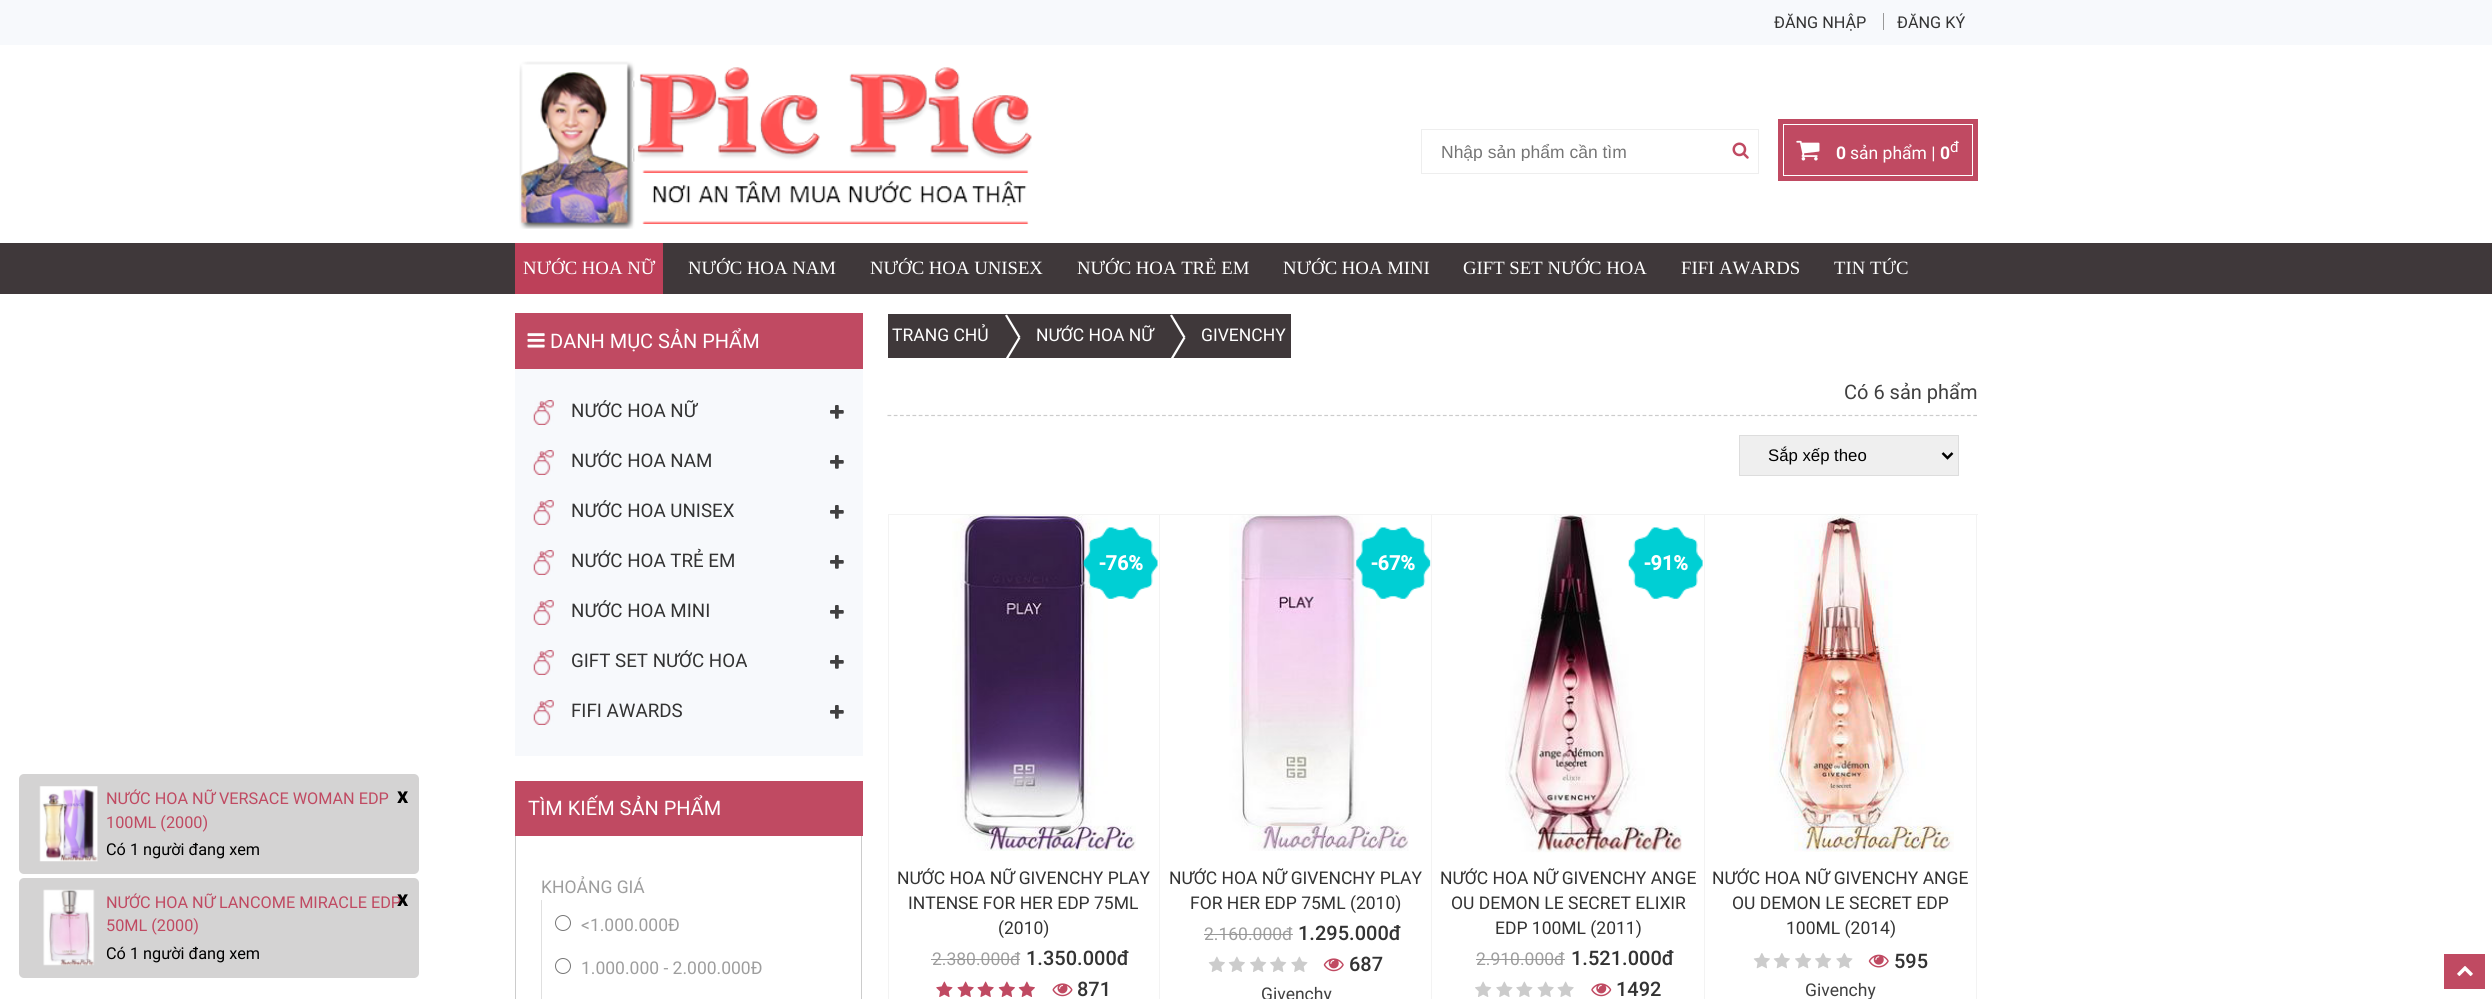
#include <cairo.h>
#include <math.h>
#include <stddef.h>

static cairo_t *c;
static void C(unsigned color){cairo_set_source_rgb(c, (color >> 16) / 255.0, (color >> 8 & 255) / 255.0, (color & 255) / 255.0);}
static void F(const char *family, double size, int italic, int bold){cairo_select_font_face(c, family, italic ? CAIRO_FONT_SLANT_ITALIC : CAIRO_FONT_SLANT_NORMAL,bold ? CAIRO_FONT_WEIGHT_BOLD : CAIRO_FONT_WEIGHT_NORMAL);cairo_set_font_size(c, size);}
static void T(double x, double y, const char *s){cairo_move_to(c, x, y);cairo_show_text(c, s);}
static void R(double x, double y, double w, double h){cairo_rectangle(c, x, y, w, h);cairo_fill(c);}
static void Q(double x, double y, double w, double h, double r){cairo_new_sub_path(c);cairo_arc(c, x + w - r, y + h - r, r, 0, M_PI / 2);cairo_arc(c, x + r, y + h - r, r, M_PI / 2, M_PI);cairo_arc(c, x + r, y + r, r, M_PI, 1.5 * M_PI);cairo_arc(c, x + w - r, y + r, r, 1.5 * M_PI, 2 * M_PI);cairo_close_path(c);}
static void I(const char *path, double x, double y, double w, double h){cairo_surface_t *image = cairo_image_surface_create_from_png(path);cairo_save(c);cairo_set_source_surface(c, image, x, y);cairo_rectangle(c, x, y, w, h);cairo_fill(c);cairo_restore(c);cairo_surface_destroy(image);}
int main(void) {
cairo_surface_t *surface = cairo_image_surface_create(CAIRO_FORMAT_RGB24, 2492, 999);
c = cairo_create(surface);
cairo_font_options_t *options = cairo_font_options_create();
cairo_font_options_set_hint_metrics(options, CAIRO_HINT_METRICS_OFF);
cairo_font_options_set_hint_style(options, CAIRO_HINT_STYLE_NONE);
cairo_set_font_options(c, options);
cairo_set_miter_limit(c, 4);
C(0xffffff);
cairo_paint(c);
C(0xf7f9fc);
R(0,0,2492,45);
F("Roboto",16.25,0,0);
C(0x333333);
T(1774,28,"ĐĂNG NHẬP");
C(0x999999);
R(1883,13,1,17);
C(0x333333);
T(1897,28,"ĐĂNG KÝ");
I("1.png",519,61,513,168);
cairo_rectangle(c,1421.5,129.5,337,44);
C(0xeeeeee);
cairo_set_line_width(c,1);
cairo_stroke(c);
cairo_save(c);
cairo_rectangle(c,1441,141,317,20);
cairo_clip(c);
F("Liberation Sans",17.5,0,0);
C(0x757575);
T(1441,158,"Nhập sản phẩm cần tìm");
cairo_restore(c);
I("2.png",1732,142,17,17);
C(0xc04a62);
R(1778,119,200,62);
cairo_rectangle(c,1783.5,124.5,189,51);
C(0xffffff);
cairo_stroke(c);
I("3.png",1796,140,24,21);
F("Roboto",17.5,0,1);
T(1836,159,"0");
F("Roboto",17.5,0,0);
T(1850,159,"sản phẩm |");
F("Roboto",17.5,0,1);
T(1940,159,"0");
F("Roboto",15,0,0);
T(1950,152,"đ");
C(0x3f383a);
R(0,243,2492,51);
C(0xbd4059);
R(515,243,148,51);
F("Liberation Serif",18.75,0,0);
C(0xffffff);
T(523,274,"NƯỚC HOA NỮ");
T(688,274,"NƯỚC HOA NAM");
T(870,274,"NƯỚC HOA UNISEX");
T(1077,274,"NƯỚC HOA TRẺ EM");
T(1283,274,"NƯỚC HOA MINI");
T(1463,274,"GIFT SET NƯỚC HOA");
T(1681,274,"FIFI AWARDS");
T(1834,274,"TIN TỨC");
C(0xd4d3d3);
Q(19,774,400,100,5);
cairo_fill(c);
I("4.png",39,786,59,76);
F("Roboto",16.25,0,0);
C(0xc04a62);
T(106,804,"NƯỚC HOA NỮ VERSACE WOMAN EDP");
T(106,828,"100ML (2000)");
F("Roboto",22,0,1);
C(0x000000);
T(397,803,"x");
F("Roboto",16.25,0,0);
T(106,855,"Có 1 người đang xem");
C(0xd4d3d3);
Q(19,878,400,100,5);
cairo_fill(c);
I("5.png",43,889,52,77);
C(0xc04a62);
T(106,908,"NƯỚC HOA NỮ LANCOME MIRACLE EDP");
T(106,931,"50ML (2000)");
F("Roboto",22,0,1);
C(0x000000);
T(397,906,"x");
F("Roboto",16.25,0,0);
T(106,959,"Có 1 người đang xem");
C(0xc04a62);
R(515,313,348,56);
I("6.png",527,333,18,15);
F("Roboto",20,0,0);
C(0xffffff);
T(550,348,"DANH MỤC SẢN PHẨM");
C(0xf7f9fc);
R(515,369,348,387);
I("7.png",533,400,21,25);
F("Roboto",18.75,0,0);
C(0x333333);
T(571,417,"NƯỚC HOA NỮ");
I("8.png",830,405,14,14);
I("7.png",533,450,21,25);
T(571,467,"NƯỚC HOA NAM");
I("8.png",830,455,14,14);
I("7.png",533,500,21,25);
T(571,517,"NƯỚC HOA UNISEX");
I("8.png",830,505,14,14);
I("7.png",533,550,21,25);
T(571,567,"NƯỚC HOA TRẺ EM");
I("8.png",830,555,14,14);
I("7.png",533,600,21,25);
T(571,617,"NƯỚC HOA MINI");
I("8.png",830,605,14,14);
I("7.png",533,650,21,25);
T(571,667,"GIFT SET NƯỚC HOA");
I("8.png",830,655,14,14);
I("7.png",533,700,21,25);
T(571,717,"FIFI AWARDS");
I("8.png",830,705,14,14);
C(0xc04a62);
R(515,781,348,55);
F("Roboto",20,0,0);
C(0xffffff);
T(528,815,"TÌM KIẾM SẢN PHẨM");
C(0xcccccc);
R(861,836,1,163);
R(515,836,1,163);
F("Roboto",17.5,0,0);
C(0x9e9e9e);
T(541,893,"KHOẢNG GIÁ");
C(0xe0e0e0);
R(541,900,1,99);
cairo_new_path(c);
cairo_arc(c,563,923,7.5,0,2 * M_PI);
C(0x767676);
cairo_stroke(c);
C(0x9e9e9e);
T(581,931,"<1.000.000Đ");
cairo_new_path(c);
cairo_arc(c,563,966,7.5,0,2 * M_PI);
C(0x767676);
cairo_stroke(c);
C(0x9e9e9e);
T(581,974,"1.000.000 - 2.000.000Đ");
C(0x3f383a);
R(888,314,403,44);
C(0xffffff);
T(892,341,"TRANG CHỦ");
cairo_new_path(c);
cairo_move_to(c,1007,314.5);
cairo_line_to(c,1020.5,337);
cairo_line_to(c,1018.5,338);
cairo_line_to(c,1005,315.5);
cairo_close_path(c);
cairo_fill(c);
cairo_new_path(c);
cairo_move_to(c,1005,359.5);
cairo_line_to(c,1018.5,337);
cairo_line_to(c,1020.5,338);
cairo_line_to(c,1007,360.5);
cairo_close_path(c);
cairo_fill(c);
T(1036,341,"NƯỚC HOA NỮ");
cairo_new_path(c);
cairo_move_to(c,1172,314.5);
cairo_line_to(c,1185.5,337);
cairo_line_to(c,1183.5,338);
cairo_line_to(c,1170,315.5);
cairo_close_path(c);
cairo_fill(c);
cairo_new_path(c);
cairo_move_to(c,1170,359.5);
cairo_line_to(c,1183.5,337);
cairo_line_to(c,1185.5,338);
cairo_line_to(c,1172,360.5);
cairo_close_path(c);
cairo_fill(c);
T(1201,341,"GIVENCHY");
cairo_new_path(c);
cairo_move_to(c,887.5,415.5);
cairo_line_to(c,1977.5,415.5);
C(0xcccccc);
cairo_set_line_width(c,1.2);
cairo_set_dash(c,(double[]){3.75,2.49},2,0);
cairo_stroke(c);
F("Roboto",20,0,0);
C(0x404040);
T(1844,399,"Có 6 sản phẩm");
C(0xefefef);
cairo_rectangle(c,1739.5,435.5,219,40);
cairo_fill_preserve(c);
C(0xdddddd);
cairo_set_line_width(c,1);
cairo_set_dash(c,NULL,0,0);
cairo_stroke(c);
cairo_new_path(c);
cairo_move_to(c,1942.5,453);
cairo_line_to(c,1947.5,458);
cairo_line_to(c,1952.5,453);
C(0x000000);
cairo_set_line_width(c,2.5);
cairo_stroke(c);
F("Liberation Sans",16.75,0,0);
T(1768,461,"Sắp xếp theo");
C(0xf3f3f3);
R(888,514,1090,1);
R(888,514,1,485);
R(1159,515,1,484);
I("9.png",952,515,184,336);
I("10.png",1083,527,75,72);
F("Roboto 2",20,0,1);
C(0xffffff);
T(1099,570,"-76%");
F("Roboto",17.5,0,0);
C(0x333333);
T(897,884,"NƯỚC HOA NỮ GIVENCHY PLAY");
T(908,909,"INTENSE FOR HER EDP 75ML");
T(998,934,"(2010)");
C(0x9e9e9e);
T(932,965,"2.380.000đ");
C(0x999999);
R(931,959,89,1);
F("Roboto Medium",20,0,0);
C(0x333333);
T(1026,965,"1.350.000đ");
I("11.png",936,981,17,16);
I("12.png",957,981,17,16);
I("12.png",977,981,17,16);
I("13.png",998,981,17,16);
I("13.png",1018,981,17,16);
I("14.png",1052,983,21,14);
T(1077,996,"871");
C(0xf3f3f3);
R(1431,515,1,484);
I("15.png",1229,515,180,336);
I("16.png",1355,527,76,72);
F("Roboto 2",20,0,1);
C(0xffffff);
T(1371,570,"-67%");
F("Roboto",17.5,0,0);
C(0x333333);
T(1169,884,"NƯỚC HOA NỮ GIVENCHY PLAY");
T(1190,909,"FOR HER EDP 75ML (2010)");
C(0x9e9e9e);
T(1204,940,"2.160.000đ");
C(0x999999);
R(1204,934,89,1);
F("Roboto Medium",20,0,0);
C(0x333333);
T(1298,940,"1.295.000đ");
I("17.png",1208,956,17,16);
I("17.png",1228,956,17,16);
I("18.png",1250,956,17,16);
I("18.png",1270,956,17,16);
I("19.png",1291,956,17,16);
I("20.png",1323,958,21,14);
T(1349,971,"687");
F("Roboto",17.5,0,0);
C(0x404040);
T(1261,1000,"Givenchy");
C(0xf3f3f3);
R(1704,515,1,484);
I("21.png",1505,515,177,338);
I("22.png",1628,527,75,72);
F("Roboto 2",20,0,1);
C(0xffffff);
T(1644,570,"-91%");
F("Roboto",17.5,0,0);
C(0x333333);
T(1440,884,"NƯỚC HOA NỮ GIVENCHY ANGE");
T(1451,909,"OU DEMON LE SECRET ELIXIR");
T(1495,934,"EDP 100ML (2011)");
C(0x9e9e9e);
T(1476,965,"2.910.000đ");
C(0x999999);
R(1476,959,89,1);
F("Roboto Medium",20,0,0);
C(0x333333);
T(1571,965,"1.521.000đ");
I("18.png",1475,981,17,16);
I("19.png",1496,981,17,16);
I("19.png",1516,981,17,16);
I("23.png",1537,981,17,16);
I("23.png",1557,981,17,16);
I("24.png",1591,983,21,14);
T(1616,996,"1492");
C(0xf3f3f3);
R(1976,515,1,484);
I("25.png",1769,515,185,337);
F("Roboto",17.5,0,0);
C(0x333333);
T(1712,884,"NƯỚC HOA NỮ GIVENCHY ANGE");
T(1732,909,"OU DEMON LE SECRET EDP");
T(1786,934,"100ML (2014)");
I("26.png",1753,953,17,16);
I("26.png",1773,953,17,16);
I("27.png",1795,953,17,16);
I("27.png",1815,953,17,16);
I("28.png",1836,953,17,16);
I("29.png",1868,954,21,14);
F("Roboto Medium",20,0,0);
T(1894,968,"595");
F("Roboto",17.5,0,0);
C(0x404040);
T(1805,996,"Givenchy");
C(0xc04a62);
R(2444,954,41,35);
I("30.png",2457,966,16,10);
cairo_surface_write_to_png(surface, "o.png");
cairo_font_options_destroy(options);
cairo_destroy(c);
cairo_surface_destroy(surface);
return 0;
}
